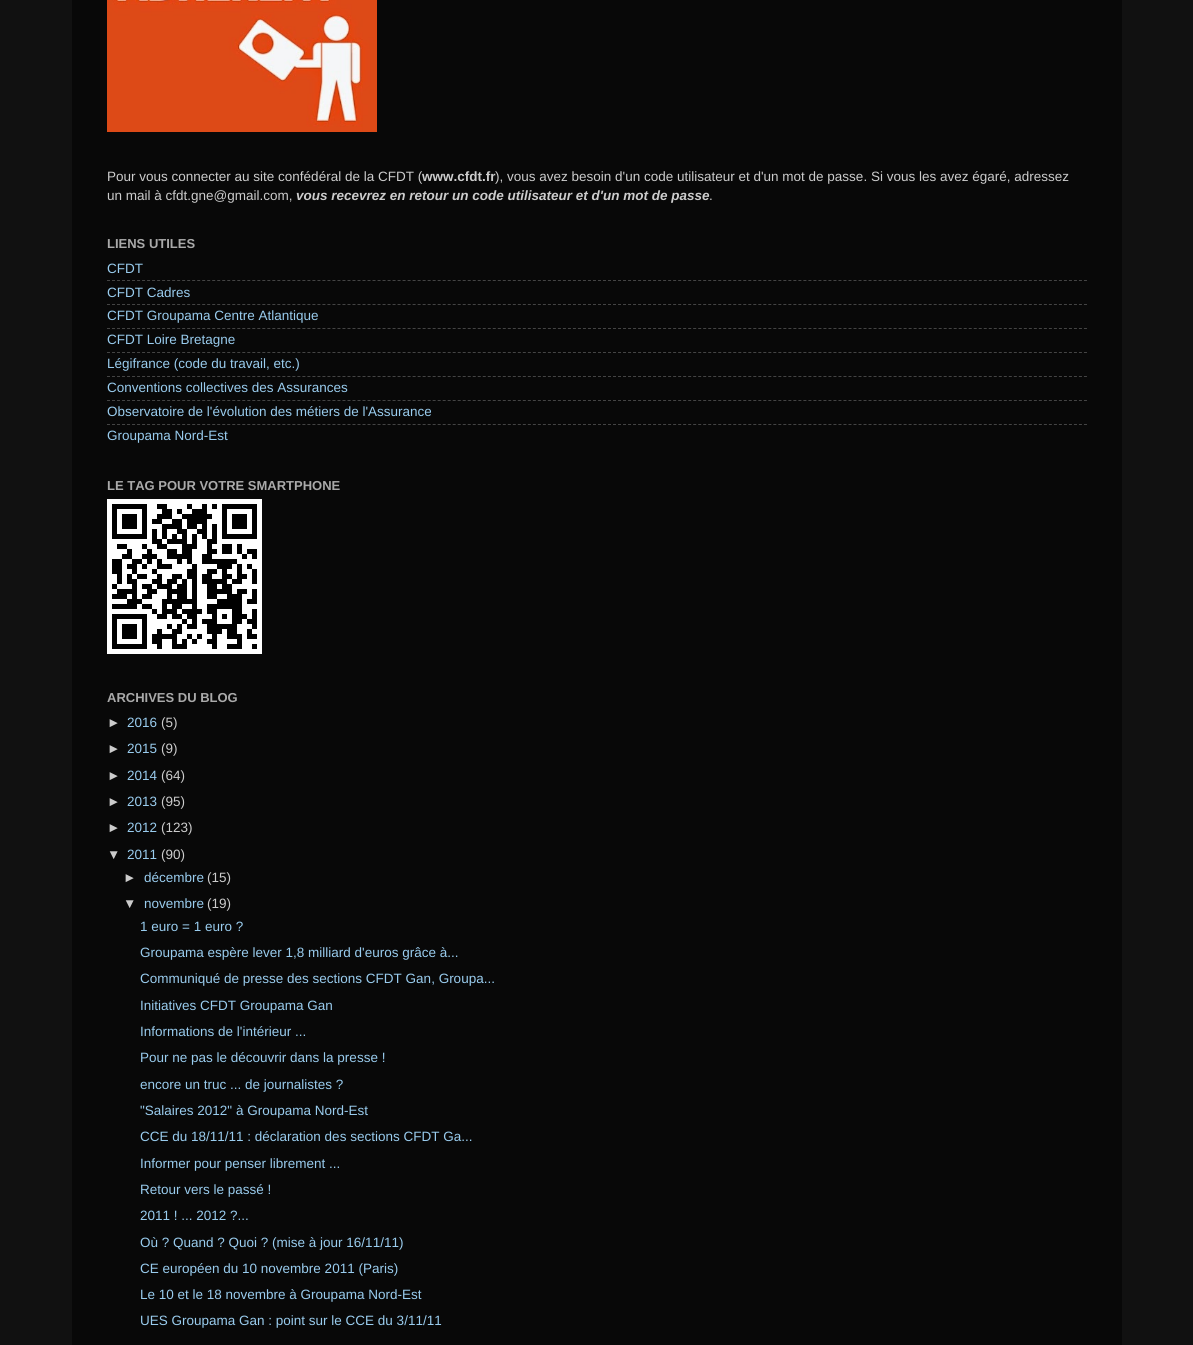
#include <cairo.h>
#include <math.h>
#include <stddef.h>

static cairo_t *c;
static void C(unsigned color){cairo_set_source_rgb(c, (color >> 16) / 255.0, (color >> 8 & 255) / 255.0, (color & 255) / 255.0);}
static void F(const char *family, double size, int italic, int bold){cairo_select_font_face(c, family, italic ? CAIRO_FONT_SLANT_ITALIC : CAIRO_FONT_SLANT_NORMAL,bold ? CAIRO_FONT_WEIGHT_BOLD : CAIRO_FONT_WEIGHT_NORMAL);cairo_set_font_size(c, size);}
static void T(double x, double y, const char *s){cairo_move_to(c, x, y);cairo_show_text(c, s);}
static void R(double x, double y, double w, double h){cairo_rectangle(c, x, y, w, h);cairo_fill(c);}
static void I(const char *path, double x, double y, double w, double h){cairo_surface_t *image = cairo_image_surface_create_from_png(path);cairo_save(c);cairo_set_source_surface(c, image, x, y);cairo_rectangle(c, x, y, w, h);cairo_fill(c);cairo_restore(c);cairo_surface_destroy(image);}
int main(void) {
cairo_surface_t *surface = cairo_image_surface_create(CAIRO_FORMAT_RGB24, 1193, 1345);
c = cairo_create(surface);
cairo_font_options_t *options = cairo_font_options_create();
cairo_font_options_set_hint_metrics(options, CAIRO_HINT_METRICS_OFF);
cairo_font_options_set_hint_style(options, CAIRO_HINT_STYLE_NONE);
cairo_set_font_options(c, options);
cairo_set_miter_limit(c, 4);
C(0x111111);
cairo_paint(c);
C(0x080808);
R(72,0,1050,1345);
I("1.png",107,0,270,132);
F("Liberation Sans",13.5,0,0);
C(0xcccccc);
T(107,181,"Pour vous connecter au site confédéral de la CFDT (");
F("Liberation Sans",13.5,0,1);
T(422,181,"www.cfdt.fr");
F("Liberation Sans",13.5,0,0);
T(495,181,"), vous avez besoin d'un code utilisateur et d'un mot de passe. Si vous les avez égaré, adressez");
T(107,200,"un mail à cfdt.gne@gmail.com,");
F("Liberation Sans",13.5,1,1);
T(296,200,"vous recevrez en retour un code utilisateur et d'un mot de passe");
F("Liberation Sans",13.5,0,0);
T(709,200,".");
F("Liberation Sans",13,0,1);
C(0xaaaaaa);
T(107,248,"LIENS UTILES");
F("Liberation Sans",13.5,0,0);
C(0x99ccee);
T(107,273,"CFDT");
cairo_new_path(c);
cairo_move_to(c,107,280.5);
cairo_line_to(c,1087,280.5);
C(0x444444);
cairo_set_line_width(c,1);
cairo_set_dash(c,(double[]){3,2.01},2,0);
cairo_stroke(c);
C(0x99ccee);
T(107,297,"CFDT Cadres");
cairo_new_path(c);
cairo_move_to(c,107,304.5);
cairo_line_to(c,1087,304.5);
C(0x444444);
cairo_stroke(c);
C(0x99ccee);
T(107,320,"CFDT Groupama Centre Atlantique");
cairo_new_path(c);
cairo_move_to(c,107,328.5);
cairo_line_to(c,1087,328.5);
C(0x444444);
cairo_stroke(c);
C(0x99ccee);
T(107,344,"CFDT Loire Bretagne");
cairo_new_path(c);
cairo_move_to(c,107,352.5);
cairo_line_to(c,1087,352.5);
C(0x444444);
cairo_stroke(c);
C(0x99ccee);
T(107,368,"Légifrance (code du travail, etc.)");
cairo_new_path(c);
cairo_move_to(c,107,376.5);
cairo_line_to(c,1087,376.5);
C(0x444444);
cairo_stroke(c);
C(0x99ccee);
T(107,392,"Conventions collectives des Assurances");
cairo_new_path(c);
cairo_move_to(c,107,400.5);
cairo_line_to(c,1087,400.5);
C(0x444444);
cairo_stroke(c);
C(0x99ccee);
T(107,416,"Observatoire de l'évolution des métiers de l'Assurance");
cairo_new_path(c);
cairo_move_to(c,107,424.5);
cairo_line_to(c,1087,424.5);
C(0x444444);
cairo_stroke(c);
C(0x99ccee);
T(107,440,"Groupama Nord-Est");
F("Liberation Sans",13,0,1);
C(0xaaaaaa);
T(107,490,"LE TAG POUR VOTRE SMARTPHONE");
I("2.png",107,499,155,155);
T(107,702,"ARCHIVES DU BLOG");
F("Liberation Sans",13.5,0,0);
C(0xcccccc);
T(107,727,"►");
C(0x99ccee);
T(127,727,"2016");
C(0xcccccc);
T(161,727,"(5)");
T(107,753,"►");
C(0x99ccee);
T(127,753,"2015");
C(0xcccccc);
T(161,753,"(9)");
T(107,780,"►");
C(0x99ccee);
T(127,780,"2014");
C(0xcccccc);
T(161,780,"(64)");
T(107,806,"►");
C(0x99ccee);
T(127,806,"2013");
C(0xcccccc);
T(161,806,"(95)");
T(107,832,"►");
C(0x99ccee);
T(127,832,"2012");
C(0xcccccc);
T(161,832,"(123)");
T(107,859,"▼");
C(0x99ccee);
T(127,859,"2011");
C(0xcccccc);
T(161,859,"(90)");
T(123,882,"►");
C(0x99ccee);
T(144,882,"décembre");
C(0xcccccc);
T(207,882,"(15)");
T(123,908,"▼");
C(0x99ccee);
T(144,908,"novembre");
C(0xcccccc);
T(207,908,"(19)");
C(0x99ccee);
T(140,931,"1 euro = 1 euro ?");
T(140,957,"Groupama espère lever 1,8 milliard d'euros grâce à...");
T(140,983,"Communiqué de presse des sections CFDT Gan, Groupa...");
T(140,1010,"Initiatives CFDT Groupama Gan");
T(140,1036,"Informations de l'intérieur ...");
T(140,1062,"Pour ne pas le découvrir dans la presse !");
T(140,1089,"encore un truc ... de journalistes ?");
T(140,1115,"\"Salaires 2012\" à Groupama Nord-Est");
T(140,1141,"CCE du 18/11/11 : déclaration des sections CFDT Ga...");
T(140,1168,"Informer pour penser librement ...");
T(140,1194,"Retour vers le passé !");
T(140,1220,"2011 ! ... 2012 ?...");
T(140,1247,"Où ? Quand ? Quoi ? (mise à jour 16/11/11)");
T(140,1273,"CE européen du 10 novembre 2011 (Paris)");
T(140,1299,"Le 10 et le 18 novembre à Groupama Nord-Est");
T(140,1325,"UES Groupama Gan : point sur le CCE du 3/11/11");
cairo_surface_write_to_png(surface, "o.png");
cairo_font_options_destroy(options);
cairo_destroy(c);
cairo_surface_destroy(surface);
return 0;
}
